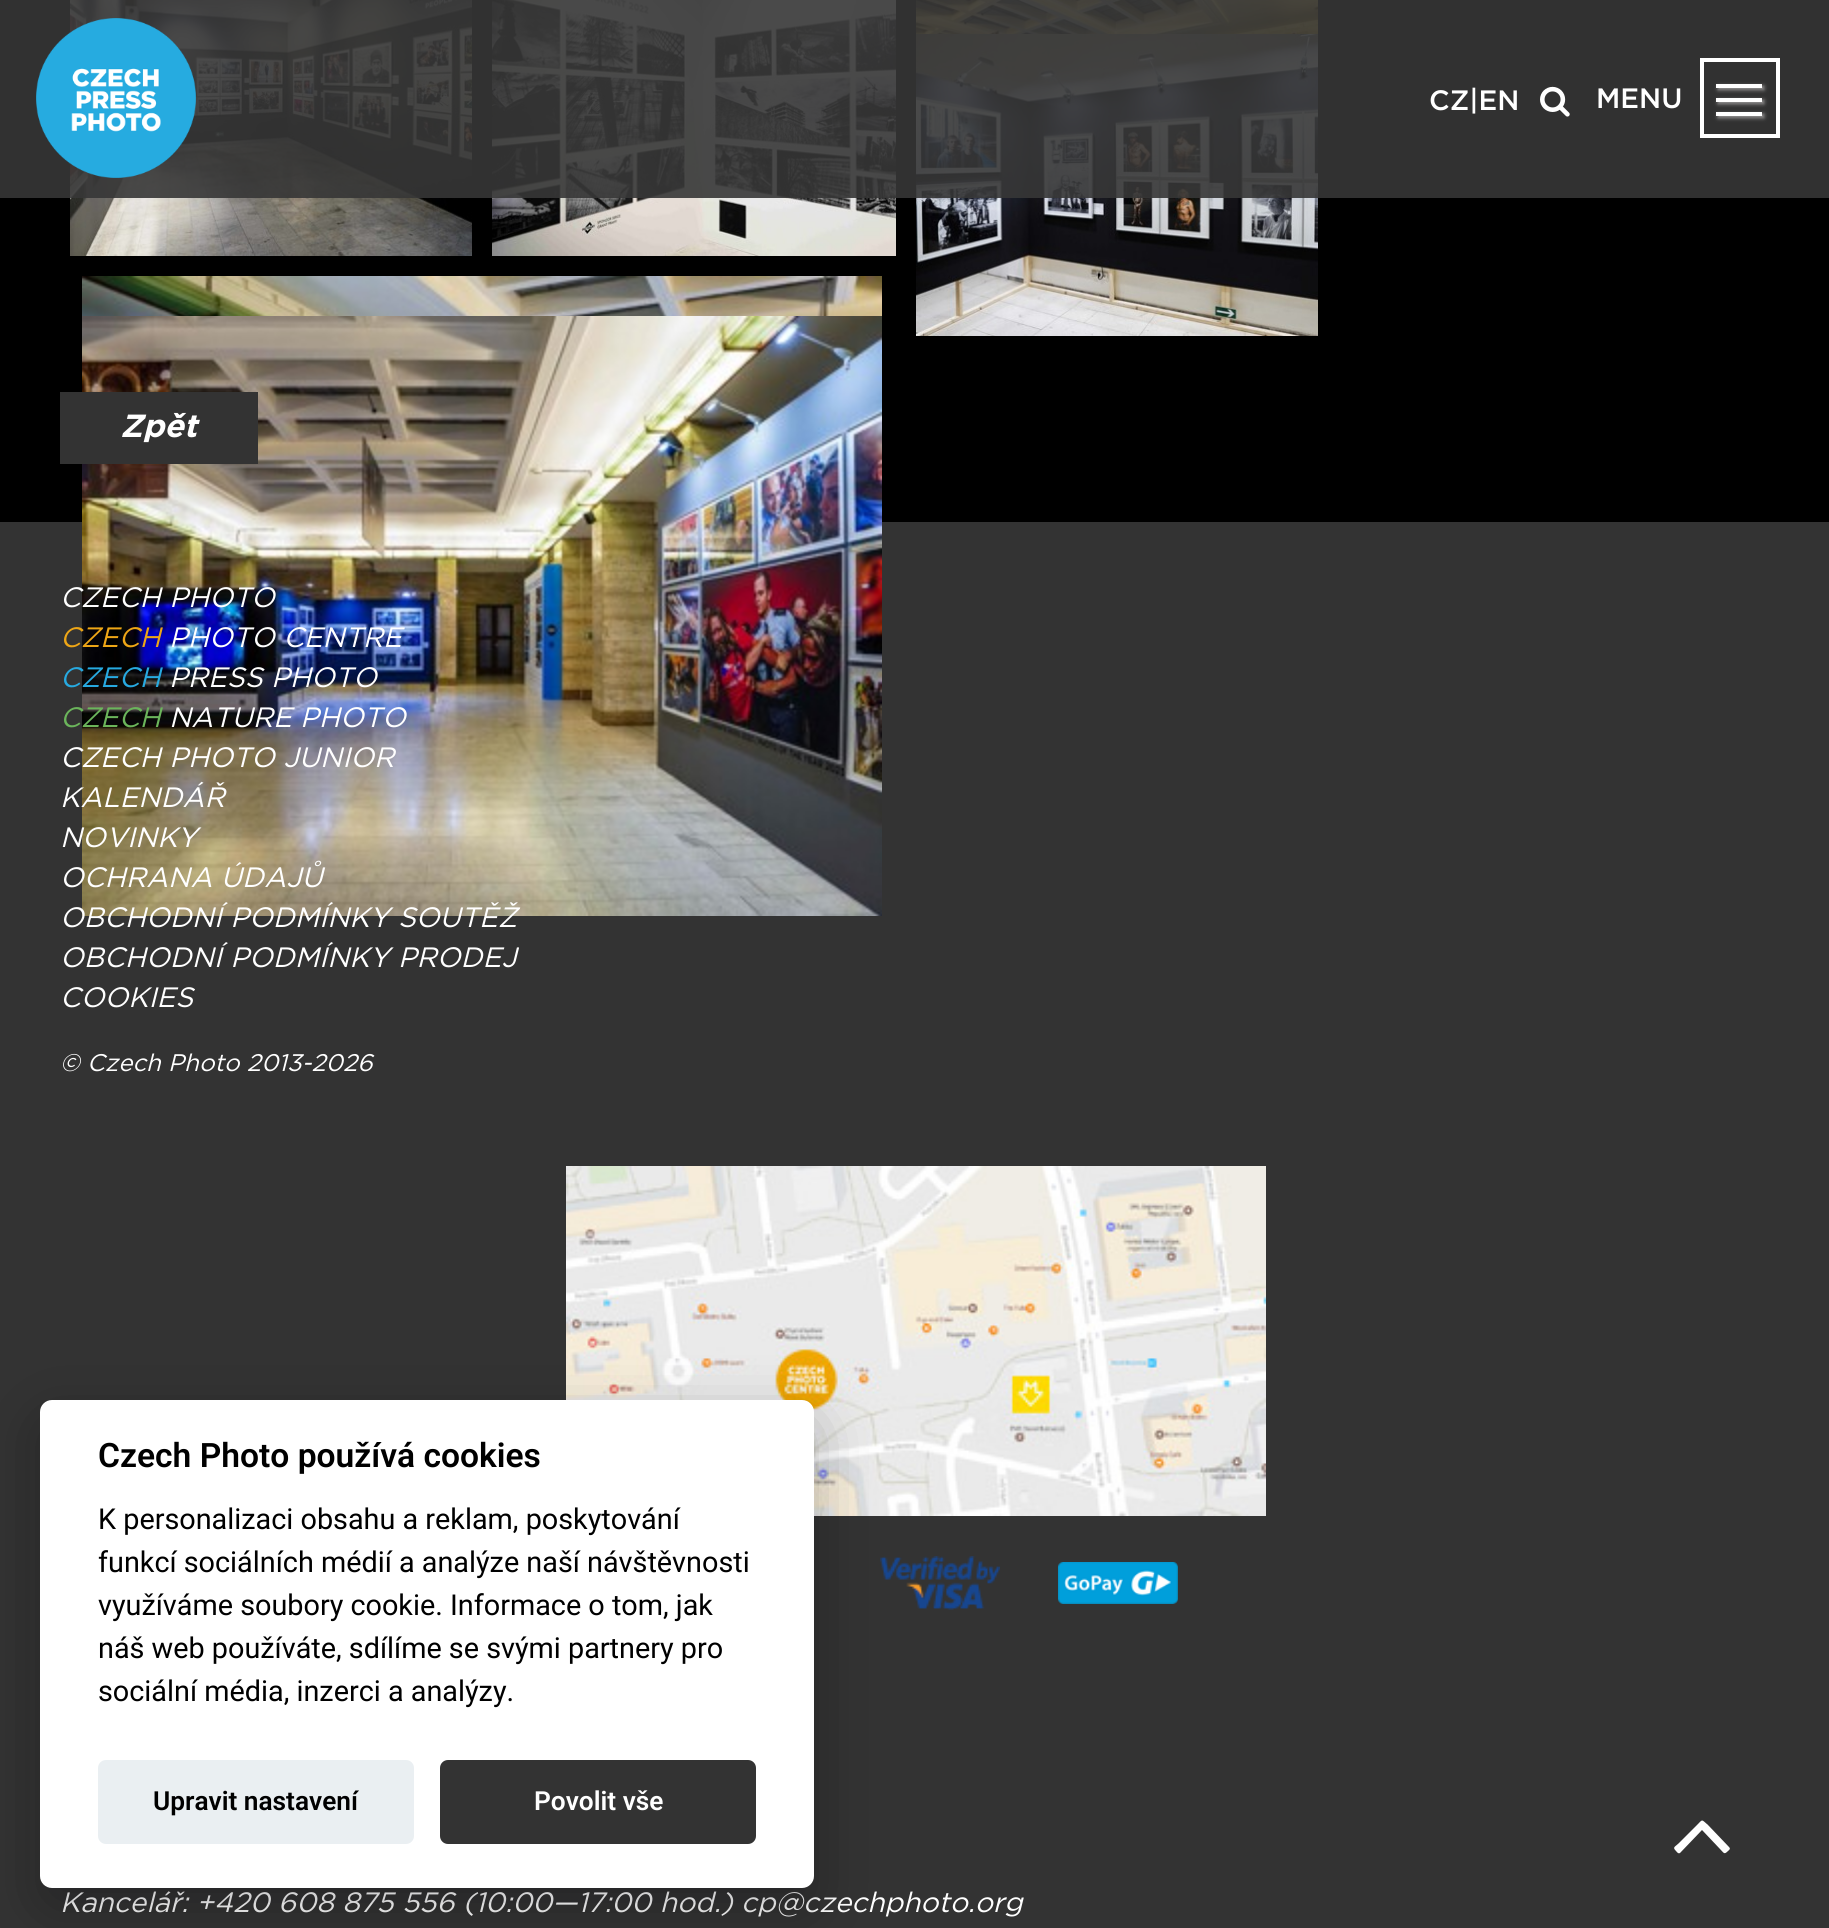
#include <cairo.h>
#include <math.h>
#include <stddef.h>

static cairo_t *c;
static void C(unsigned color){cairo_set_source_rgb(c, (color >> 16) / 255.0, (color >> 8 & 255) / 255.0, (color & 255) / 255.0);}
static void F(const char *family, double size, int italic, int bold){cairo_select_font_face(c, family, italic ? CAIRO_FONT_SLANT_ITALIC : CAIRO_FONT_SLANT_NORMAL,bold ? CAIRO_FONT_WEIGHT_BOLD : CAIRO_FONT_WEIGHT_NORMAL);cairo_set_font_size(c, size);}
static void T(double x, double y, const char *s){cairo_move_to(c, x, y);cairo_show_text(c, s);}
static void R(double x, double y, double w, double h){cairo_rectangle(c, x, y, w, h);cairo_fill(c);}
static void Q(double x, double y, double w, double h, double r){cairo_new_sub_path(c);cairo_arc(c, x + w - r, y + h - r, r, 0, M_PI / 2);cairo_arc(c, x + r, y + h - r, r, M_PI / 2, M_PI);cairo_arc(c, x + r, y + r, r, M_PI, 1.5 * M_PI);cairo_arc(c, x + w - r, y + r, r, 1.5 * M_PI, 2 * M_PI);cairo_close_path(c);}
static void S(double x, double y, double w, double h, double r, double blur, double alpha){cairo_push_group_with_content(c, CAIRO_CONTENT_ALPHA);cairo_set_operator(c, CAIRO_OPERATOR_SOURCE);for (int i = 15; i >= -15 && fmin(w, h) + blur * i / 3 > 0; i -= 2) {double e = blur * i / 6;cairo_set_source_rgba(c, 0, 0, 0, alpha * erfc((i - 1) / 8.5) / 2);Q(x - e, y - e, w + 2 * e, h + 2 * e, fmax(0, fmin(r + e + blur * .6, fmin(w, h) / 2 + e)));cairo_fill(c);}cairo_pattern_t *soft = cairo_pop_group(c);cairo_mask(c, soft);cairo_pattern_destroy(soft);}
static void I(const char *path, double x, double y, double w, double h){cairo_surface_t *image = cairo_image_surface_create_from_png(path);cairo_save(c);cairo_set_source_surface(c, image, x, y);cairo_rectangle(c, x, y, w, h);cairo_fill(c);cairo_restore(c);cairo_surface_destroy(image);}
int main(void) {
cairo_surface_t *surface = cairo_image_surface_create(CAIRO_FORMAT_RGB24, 1829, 1928);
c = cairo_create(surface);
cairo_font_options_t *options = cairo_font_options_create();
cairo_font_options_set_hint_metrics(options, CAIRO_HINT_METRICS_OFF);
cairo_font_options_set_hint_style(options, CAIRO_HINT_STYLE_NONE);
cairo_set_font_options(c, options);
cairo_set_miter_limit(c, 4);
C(0x000000);
cairo_paint(c);
I("3.png",70,0,402,256);
I("4.png",492,0,404,256);
I("5.png",916,0,402,34);
I("7.png",916,34,402,302);
cairo_set_source_rgba(c,0.216,0.216,0.216,0.9);
R(0,0,1829,198);
I("1.png",36,18,160,160);
F("Gotham Medium",28,0,0);
C(0xffffff);
T(1429,110,"CZ|EN");
I("2.png",1540,86,30,31);
cairo_rectangle(c,1702,60,76,76);
cairo_set_line_width(c,4);
cairo_stroke(c);
T(1596,108,"MENU");
C(0x999797);
S(1718,86,46,4,0,2,1);
C(0xffffff);
R(1716,84,46,4);
C(0x999797);
S(1718,100,46,4,0,2,1);
C(0xffffff);
R(1716,98,46,4);
C(0x999797);
S(1718,114,46,4,0,2,1);
C(0xffffff);
R(1716,112,46,4);
I("6.png",82,276,800,40);
C(0x333333);
R(0,522,1829,1406);
I("8.png",82,316,800,600);
R(60,392,198,72);
F("Gotham",32,1,1);
C(0xffffff);
T(120,437,"Zpět");
F("Gotham",28,1,0);
T(60,607,"CZECH PHOTO");
C(0xeea616);
T(60,647,"CZECH");
C(0xffffff);
T(169,647,"PHOTO CENTRE");
C(0x27aae1);
T(60,687,"CZECH");
C(0xffffff);
T(169,687,"PRESS PHOTO");
C(0x6bb55b);
T(60,727,"CZECH");
C(0xffffff);
T(169,727,"NATURE PHOTO");
T(60,767,"CZECH PHOTO JUNIOR");
T(60,807,"KALENDÁŘ");
T(60,847,"NOVINKY");
T(60,887,"OCHRANA ÚDAJŮ");
T(60,927,"OBCHODNÍ PODMÍNKY SOUTĚŽ");
T(60,967,"OBCHODNÍ PODMÍNKY PRODEJ");
T(60,1007,"COOKIES");
F("Gotham",24,1,0);
T(60,1071,"© Czech Photo 2013-2026");
I("9.png",566,1166,700,350);
I("10.png",880,1556,120,54);
I("11.png",1058,1562,120,42);
F("Gotham",28,1,0);
T(60,1912,"Kancelář: +420 608 875 556 (10:00—17:00 hod.) cp@czechphoto.org");
cairo_new_path(c);
cairo_move_to(c,1729,1847);
cairo_curve_to(c,1731,1849,1729,1850,1728,1851);
cairo_curve_to(c,1724,1855,1724,1853,1720,1849);
cairo_line_to(c,1702,1830);
cairo_line_to(c,1680,1853);
cairo_curve_to(c,1678,1854,1677,1852,1676,1851);
cairo_curve_to(c,1672,1847,1675,1847,1679,1843);
cairo_line_to(c,1697,1825);
cairo_curve_to(c,1703,1819,1701,1819,1708,1825);
cairo_close_path(c);
cairo_fill(c);
C(0x020203);
S(40,1420,774,488,12,30,.28);
C(0xffffff);
Q(40,1400,774,488,12);
cairo_fill(c);
F("Roboto SemiBold",33.6,0,0);
C(0x000000);
T(98,1467,"Czech Photo používá cookies");
F("Roboto",28.8,0,0);
T(98,1529,"K personalizaci obsahu a reklam, poskytování");
T(98,1572,"funkcí sociálních médií a analýze naší návštěvnosti");
T(98,1615,"využíváme soubory cookie. Informace o tom, jak");
T(98,1658,"náš web používáte, sdílíme se svými partnery pro");
T(98,1701,"sociální média, inzerci a analýzy.");
C(0xeaeff2);
Q(98,1760,316,84,8);
cairo_fill(c);
F("Roboto SemiBold",26.25,0,0);
C(0x000000);
T(153,1810,"Upravit nastavení");
C(0x333333);
Q(440,1760,316,84,8);
cairo_fill(c);
C(0xffffff);
T(534,1810,"Povolit vše");
cairo_surface_write_to_png(surface, "o.png");
cairo_font_options_destroy(options);
cairo_destroy(c);
cairo_surface_destroy(surface);
return 0;
}
